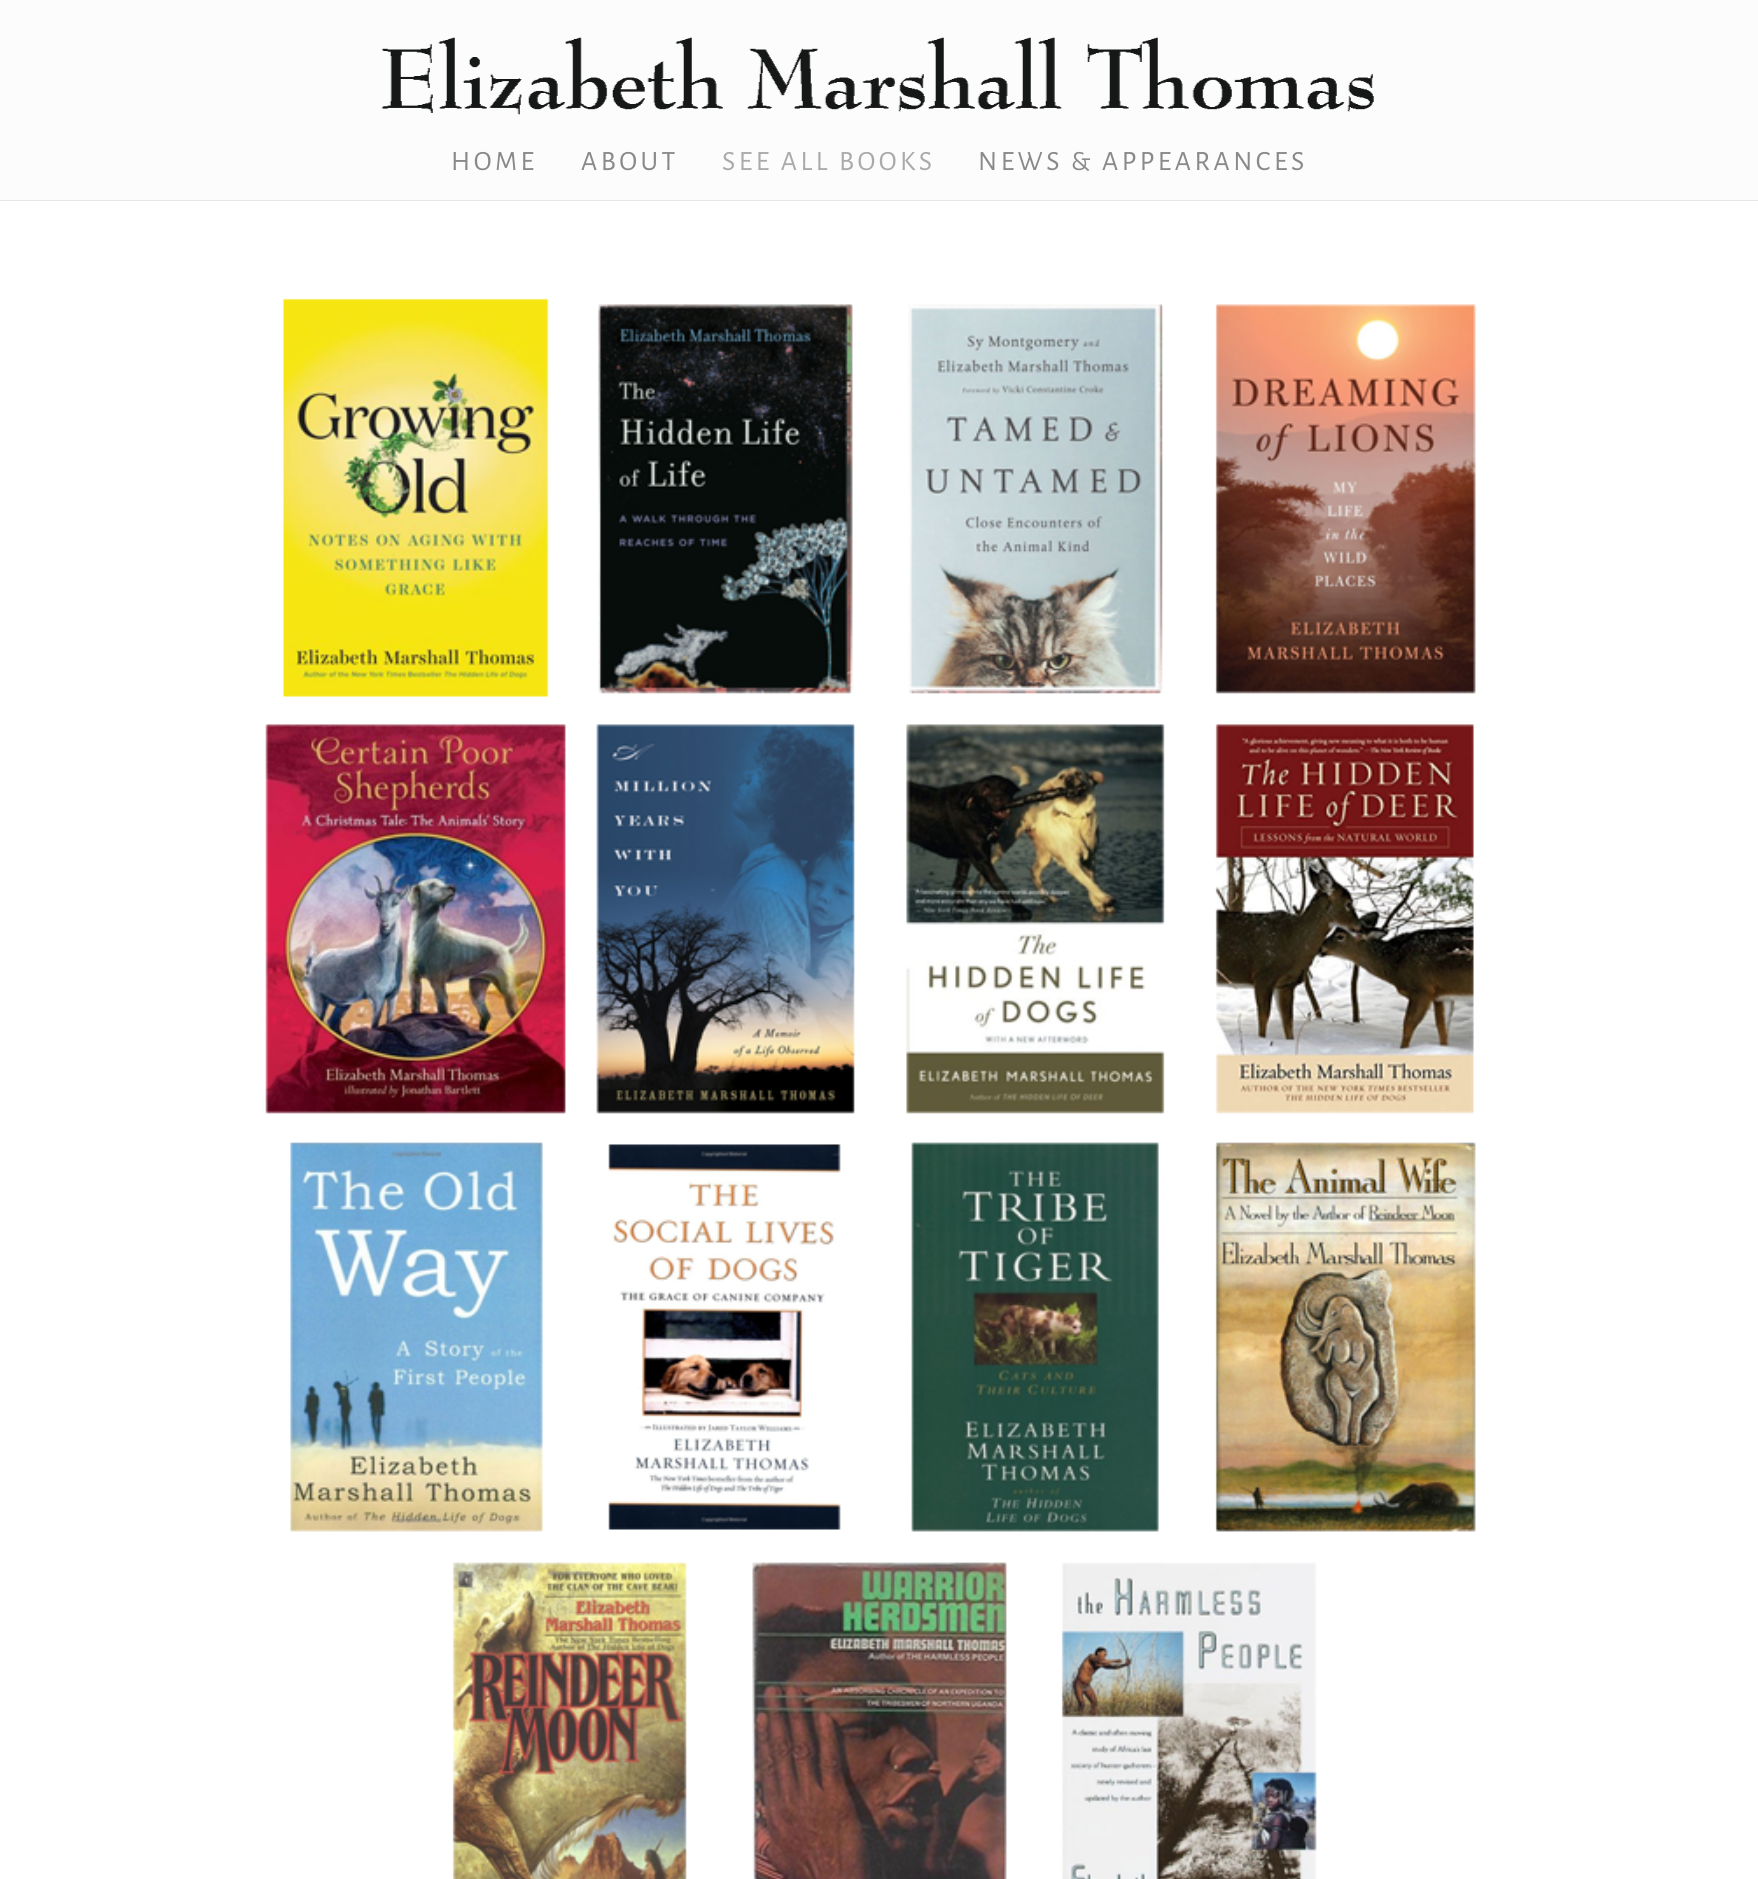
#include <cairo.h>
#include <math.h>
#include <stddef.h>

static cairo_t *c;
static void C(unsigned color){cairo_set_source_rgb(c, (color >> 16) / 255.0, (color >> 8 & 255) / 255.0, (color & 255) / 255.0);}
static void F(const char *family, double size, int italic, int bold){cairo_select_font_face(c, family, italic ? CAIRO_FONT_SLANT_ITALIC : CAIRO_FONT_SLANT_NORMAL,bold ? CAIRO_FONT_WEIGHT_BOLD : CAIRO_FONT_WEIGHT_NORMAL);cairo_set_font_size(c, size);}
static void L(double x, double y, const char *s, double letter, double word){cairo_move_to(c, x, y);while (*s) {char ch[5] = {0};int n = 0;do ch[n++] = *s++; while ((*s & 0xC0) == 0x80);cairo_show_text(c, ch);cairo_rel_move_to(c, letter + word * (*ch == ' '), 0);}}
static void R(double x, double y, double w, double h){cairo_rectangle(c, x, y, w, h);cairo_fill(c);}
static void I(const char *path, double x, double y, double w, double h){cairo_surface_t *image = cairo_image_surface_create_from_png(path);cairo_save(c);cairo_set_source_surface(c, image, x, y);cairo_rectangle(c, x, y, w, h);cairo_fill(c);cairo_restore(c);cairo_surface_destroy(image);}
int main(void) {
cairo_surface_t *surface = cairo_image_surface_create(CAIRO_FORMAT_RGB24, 1758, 1879);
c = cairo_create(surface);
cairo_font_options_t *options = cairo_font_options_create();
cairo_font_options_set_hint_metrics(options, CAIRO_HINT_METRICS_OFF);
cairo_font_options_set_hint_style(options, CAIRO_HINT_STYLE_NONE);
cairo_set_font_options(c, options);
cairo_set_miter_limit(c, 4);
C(0xffffff);
cairo_paint(c);
C(0xe6e6e6);
cairo_new_path(c);
cairo_move_to(c,0,200);
cairo_line_to(c,0,201);
cairo_line_to(c,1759,201);
cairo_line_to(c,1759,2);
cairo_line_to(c,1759,200);
cairo_close_path(c);
cairo_fill(c);
C(0xfcfcfc);
R(0,0,1758,200);
I("1.png",381,37,993,78);
F("Alegreya Sans",28,0,0);
C(0x898989);
L(451,170,"HOME",3.5,0);
L(581,170,"ABOUT",3.5,0);
C(0xaaaaaa);
L(722,170,"SEE ALL BOOKS",3.5,0);
C(0x898989);
L(978,170,"NEWS & APPEARANCES",3.5,0);
I("2.png",283,298,266,399);
I("3.png",598,304,255,390);
I("4.png",908,304,255,390);
I("5.png",1215,304,261,390);
I("6.png",265,724,301,390);
I("7.png",596,724,259,390);
I("8.png",906,724,259,390);
I("9.png",1215,724,259,390);
I("10.png",290,1142,253,390);
I("11.png",608,1144,233,386);
I("12.png",911,1142,248,390);
I("13.png",1215,1142,261,390);
I("14.png",452,1562,235,317);
I("15.png",752,1562,255,317);
I("16.png",1061,1562,256,317);
cairo_surface_write_to_png(surface, "o.png");
cairo_font_options_destroy(options);
cairo_destroy(c);
cairo_surface_destroy(surface);
return 0;
}
